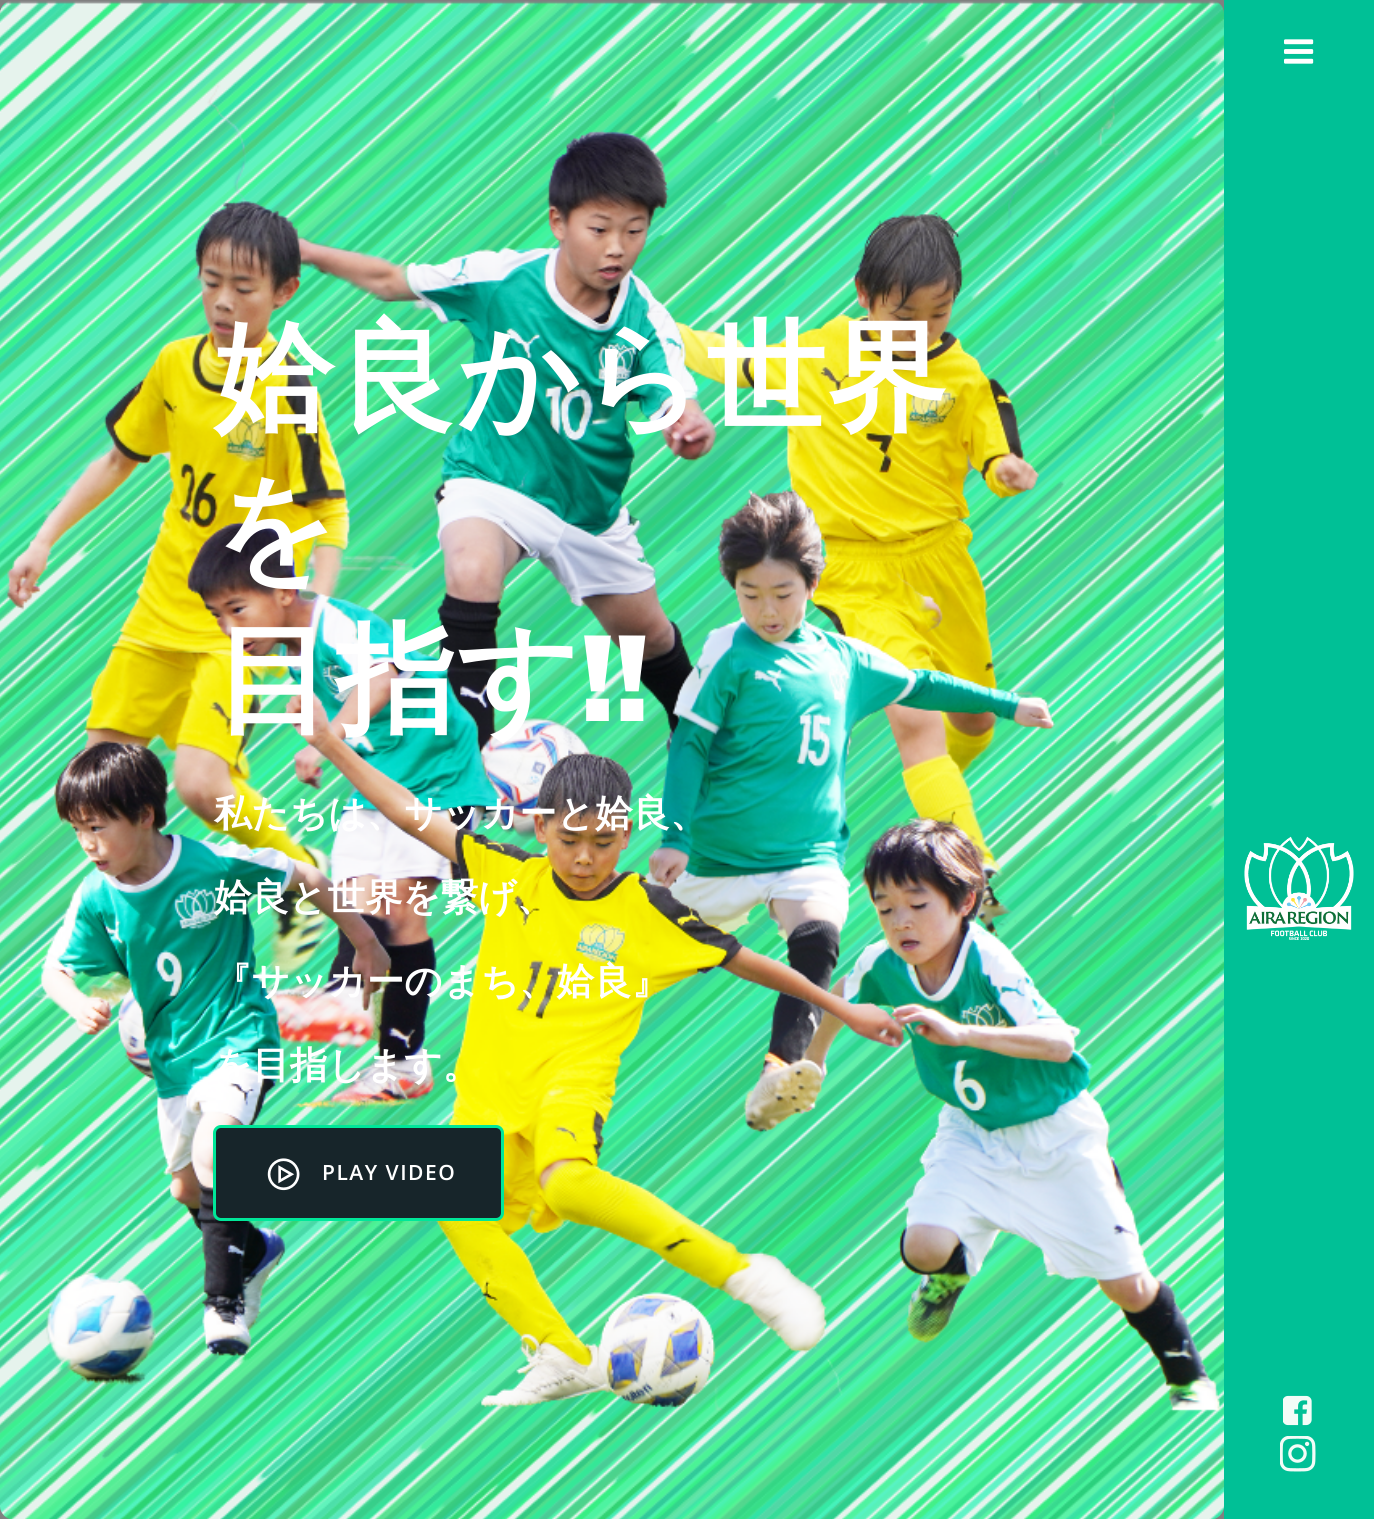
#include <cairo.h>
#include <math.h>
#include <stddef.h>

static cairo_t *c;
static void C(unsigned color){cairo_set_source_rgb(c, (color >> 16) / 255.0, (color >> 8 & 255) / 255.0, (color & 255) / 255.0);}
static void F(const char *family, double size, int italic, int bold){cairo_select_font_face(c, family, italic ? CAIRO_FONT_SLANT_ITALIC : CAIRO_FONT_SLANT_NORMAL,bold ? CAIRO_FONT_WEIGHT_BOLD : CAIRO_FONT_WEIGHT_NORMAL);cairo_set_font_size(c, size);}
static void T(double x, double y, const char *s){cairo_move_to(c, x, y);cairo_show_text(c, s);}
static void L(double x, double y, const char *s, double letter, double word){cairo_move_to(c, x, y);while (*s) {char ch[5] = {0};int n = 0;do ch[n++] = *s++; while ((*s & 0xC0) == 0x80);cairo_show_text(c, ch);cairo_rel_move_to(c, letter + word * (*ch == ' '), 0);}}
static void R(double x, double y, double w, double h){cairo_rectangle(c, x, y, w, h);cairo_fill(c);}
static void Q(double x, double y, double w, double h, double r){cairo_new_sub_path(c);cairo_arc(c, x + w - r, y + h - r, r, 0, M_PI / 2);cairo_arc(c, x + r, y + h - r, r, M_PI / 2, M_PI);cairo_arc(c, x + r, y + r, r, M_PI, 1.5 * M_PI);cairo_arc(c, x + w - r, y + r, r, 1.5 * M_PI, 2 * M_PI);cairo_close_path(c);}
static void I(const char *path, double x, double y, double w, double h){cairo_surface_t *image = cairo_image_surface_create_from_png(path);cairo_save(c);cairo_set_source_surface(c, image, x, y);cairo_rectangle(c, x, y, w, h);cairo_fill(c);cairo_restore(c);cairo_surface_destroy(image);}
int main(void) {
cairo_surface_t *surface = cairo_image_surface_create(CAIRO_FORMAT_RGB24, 1374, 1519);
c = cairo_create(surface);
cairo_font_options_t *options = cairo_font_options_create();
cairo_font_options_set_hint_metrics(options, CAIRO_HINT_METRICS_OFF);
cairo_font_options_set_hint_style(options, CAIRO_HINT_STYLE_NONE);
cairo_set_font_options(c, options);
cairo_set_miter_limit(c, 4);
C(0x808080);
cairo_paint(c);
C(0x00c096);
R(1224,0,150,1519);
I("1.png",1284,39,30,25);
I("2.png",0,1,1224,1518);
F("WenQuanYi Zen Hei",120,0,1);
C(0xffffff);
L(214,419,"姶良から世界",1.5,0);
L(214,570,"を",1.5,0);
L(214,721,"目指す",1.5,0);
F("Muli Black",120,0,0);
L(581,721,"!!",1.5,0);
F("WenQuanYi Zen Hei",37.5,0,1);
T(214,826,"私たちは、サッカーと姶良、");
T(214,910,"姶良と世界を繋げ、");
T(214,994,"『サッカーのまち、姶良』");
T(214,1078,"を目指します。");
C(0x17252a);
Q(214.5,1126.5,288,93,6.5);
cairo_fill_preserve(c);
C(0x00e799);
cairo_set_line_width(c,3);
cairo_stroke(c);
I("3.png",267,1158,33,33);
F("Open Sans SemiBold",21,0,0);
C(0xffffff);
L(322,1180,"PLAY VIDEO",1.5,0);
I("4.png",1244,836,110,104);
I("5.png",1283,1395,29,31);
I("6.png",1280,1436,36,36);
cairo_surface_write_to_png(surface, "o.png");
cairo_font_options_destroy(options);
cairo_destroy(c);
cairo_surface_destroy(surface);
return 0;
}
